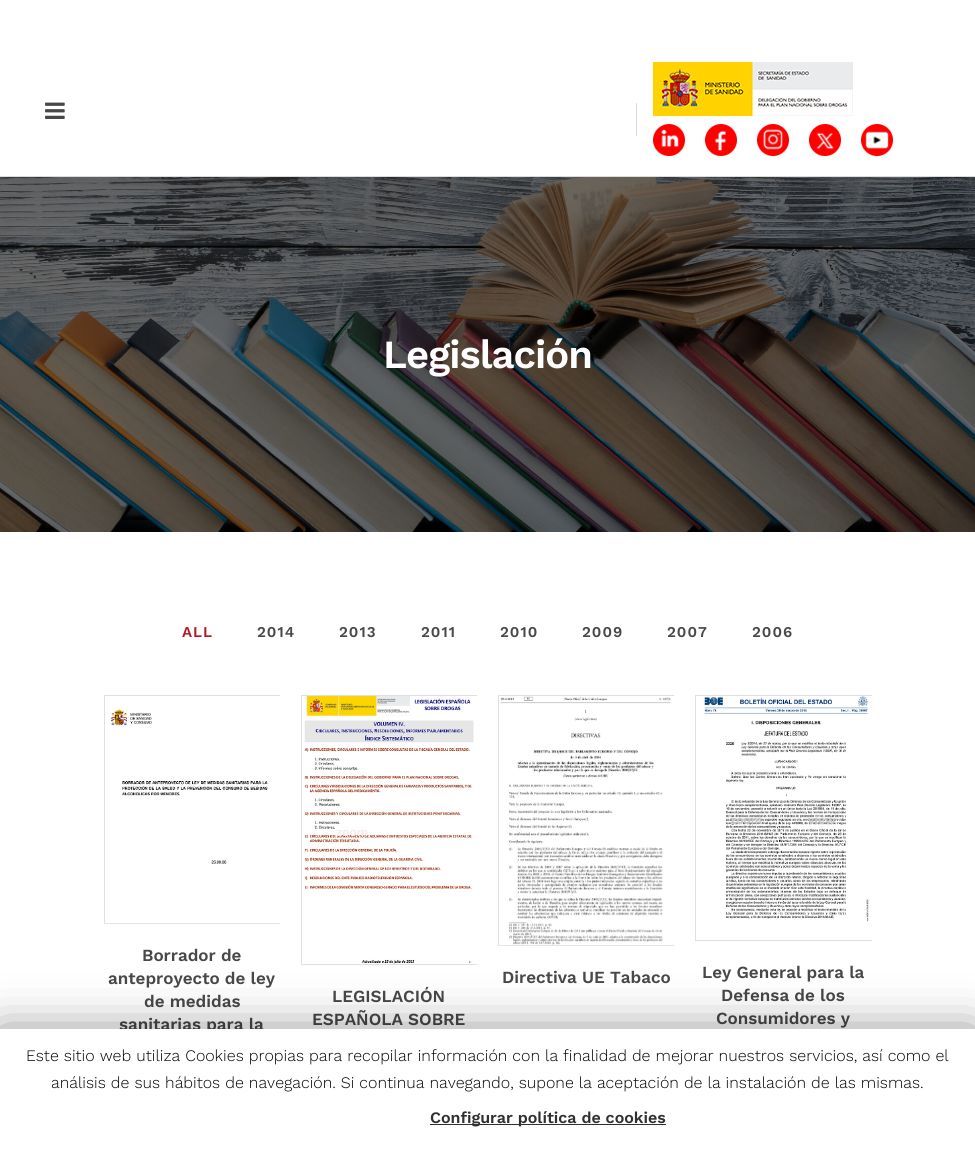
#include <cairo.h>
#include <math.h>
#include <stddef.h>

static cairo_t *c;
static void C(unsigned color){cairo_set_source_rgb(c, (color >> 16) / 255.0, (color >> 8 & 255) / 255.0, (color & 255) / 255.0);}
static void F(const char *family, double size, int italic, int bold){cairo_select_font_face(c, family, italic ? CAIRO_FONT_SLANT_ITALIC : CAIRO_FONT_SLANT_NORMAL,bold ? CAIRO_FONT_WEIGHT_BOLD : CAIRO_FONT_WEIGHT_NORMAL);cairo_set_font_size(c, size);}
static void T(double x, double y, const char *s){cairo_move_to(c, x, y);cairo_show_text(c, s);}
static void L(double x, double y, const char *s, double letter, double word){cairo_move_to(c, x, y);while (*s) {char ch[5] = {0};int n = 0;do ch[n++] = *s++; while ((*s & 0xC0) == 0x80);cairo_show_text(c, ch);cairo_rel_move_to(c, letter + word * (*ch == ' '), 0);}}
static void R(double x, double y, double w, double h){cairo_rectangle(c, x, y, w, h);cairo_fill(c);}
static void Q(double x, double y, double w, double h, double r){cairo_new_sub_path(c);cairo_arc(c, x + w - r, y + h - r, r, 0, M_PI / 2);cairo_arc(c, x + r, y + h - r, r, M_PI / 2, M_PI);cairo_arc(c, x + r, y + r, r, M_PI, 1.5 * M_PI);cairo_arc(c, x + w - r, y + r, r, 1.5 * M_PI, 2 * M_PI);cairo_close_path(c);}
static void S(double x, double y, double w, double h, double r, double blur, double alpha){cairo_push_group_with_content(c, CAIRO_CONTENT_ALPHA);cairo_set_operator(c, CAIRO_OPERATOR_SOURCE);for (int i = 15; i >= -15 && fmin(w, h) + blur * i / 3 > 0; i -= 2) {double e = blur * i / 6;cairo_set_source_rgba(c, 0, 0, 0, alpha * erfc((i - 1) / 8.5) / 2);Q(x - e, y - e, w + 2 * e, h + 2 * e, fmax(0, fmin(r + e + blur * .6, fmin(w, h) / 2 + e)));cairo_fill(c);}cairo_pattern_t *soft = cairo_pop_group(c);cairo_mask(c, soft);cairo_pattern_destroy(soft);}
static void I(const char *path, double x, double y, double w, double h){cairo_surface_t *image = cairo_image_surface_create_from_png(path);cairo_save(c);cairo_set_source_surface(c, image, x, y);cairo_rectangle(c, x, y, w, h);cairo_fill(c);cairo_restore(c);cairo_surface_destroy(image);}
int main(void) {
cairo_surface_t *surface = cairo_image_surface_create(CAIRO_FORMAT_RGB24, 975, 1153);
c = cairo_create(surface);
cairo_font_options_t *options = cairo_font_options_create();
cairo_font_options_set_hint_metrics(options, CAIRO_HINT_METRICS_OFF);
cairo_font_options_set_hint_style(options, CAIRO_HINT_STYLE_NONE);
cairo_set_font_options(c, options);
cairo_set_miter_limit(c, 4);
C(0xffffff);
cairo_paint(c);
C(0xdbdbdb);
R(0,176,975,1);
I("1.png",45,102,20,17);
I("2.png",653,62,200,54);
R(636,103,1,33);
I("3.png",653,124,32,32);
I("4.png",705,124,32,32);
I("5.png",757,124,32,32);
I("6.png",809,124,32,32);
I("7.png",861,124,32,32);
I("8.png",0,177,975,355);
F("Work Sans SemiBold",40,0,0);
C(0xffffff);
L(383,368,"Legislación",-1,0);
F("Work Sans SemiBold",15,0,0);
C(0xb41926);
L(182,637,"ALL",1,0);
C(0x484848);
L(257,637,"2014",1,0);
L(339,637,"2013",1,0);
L(421,637,"2011",1,0);
L(500,637,"2010",1,0);
L(582,637,"2009",1,0);
L(667,637,"2007",1,0);
L(752,637,"2006",1,0);
cairo_save(c);
cairo_rectangle(c,104,695,176,229);
cairo_clip(c);
cairo_rectangle(c,104.5,695.5,177,228);
C(0xe0e0e0);
cairo_set_line_width(c,1);
cairo_stroke(c);
cairo_restore(c);
I("9.png",105,708,175,216);
F("Work Sans SemiBold",17,0,0);
T(142,961,"Borrador de");
T(108,984,"anteproyecto de ley");
T(144,1007,"de medidas");
T(119,1030,"sanitarias para la");
cairo_save(c);
cairo_rectangle(c,301,695,176,270);
cairo_clip(c);
cairo_rectangle(c,301.5,695.5,177,269);
C(0xe0e0e0);
cairo_set_line_width(c,1);
cairo_stroke(c);
cairo_restore(c);
I("10.png",304,696,170,268);
F("Work Sans SemiBold",12,0,0);
C(0xf5ebe8);
T(336,836,"zoom");
F("Work Sans SemiBold",17,0,0);
C(0x484848);
T(332,1002,"LEGISLACIÓN");
T(312,1025,"ESPAÑOLA SOBRE");
cairo_save(c);
cairo_rectangle(c,498,695,176,251);
cairo_clip(c);
cairo_rectangle(c,498.5,695.5,177,250);
C(0xe0e0e0);
cairo_set_line_width(c,1);
cairo_stroke(c);
cairo_restore(c);
I("11.png",499,696,175,250);
T(502,983,"Directiva UE Tabaco");
cairo_save(c);
cairo_rectangle(c,695,695,177,246);
cairo_clip(c);
cairo_rectangle(c,695.5,695.5,178,245);
C(0xe0e0e0);
cairo_set_line_width(c,1);
cairo_stroke(c);
cairo_restore(c);
I("12.png",704,696,165,226);
F("Work Sans SemiBold",12,0,0);
C(0xc8c8c8);
T(730,824,"zoom");
T(808,824,"view");
F("Work Sans SemiBold",17,0,0);
C(0x484848);
T(702,978,"Ley General para la");
T(721,1001,"Defensa de los");
T(716,1024,"Consumidores y");
C(0x000000);
S(0,1034,975,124,0,25,.5);
C(0xffffff);
R(0,1029,975,124);
F("Work Sans Light",16,0,0);
C(0x000000);
T(26,1061,"Este sitio web utiliza Cookies propias para recopilar información con la finalidad de mejorar nuestros servicios, así como el");
T(51,1088,"análisis de sus hábitos de navegación. Si continua navegando, supone la aceptación de la instalación de las mismas.");
C(0x303030);
R(430,1124,236,1);
F("Work Sans SemiBold",16,0,0);
T(430,1123,"Configurar política de cookies");
cairo_surface_write_to_png(surface, "o.png");
cairo_font_options_destroy(options);
cairo_destroy(c);
cairo_surface_destroy(surface);
return 0;
}
